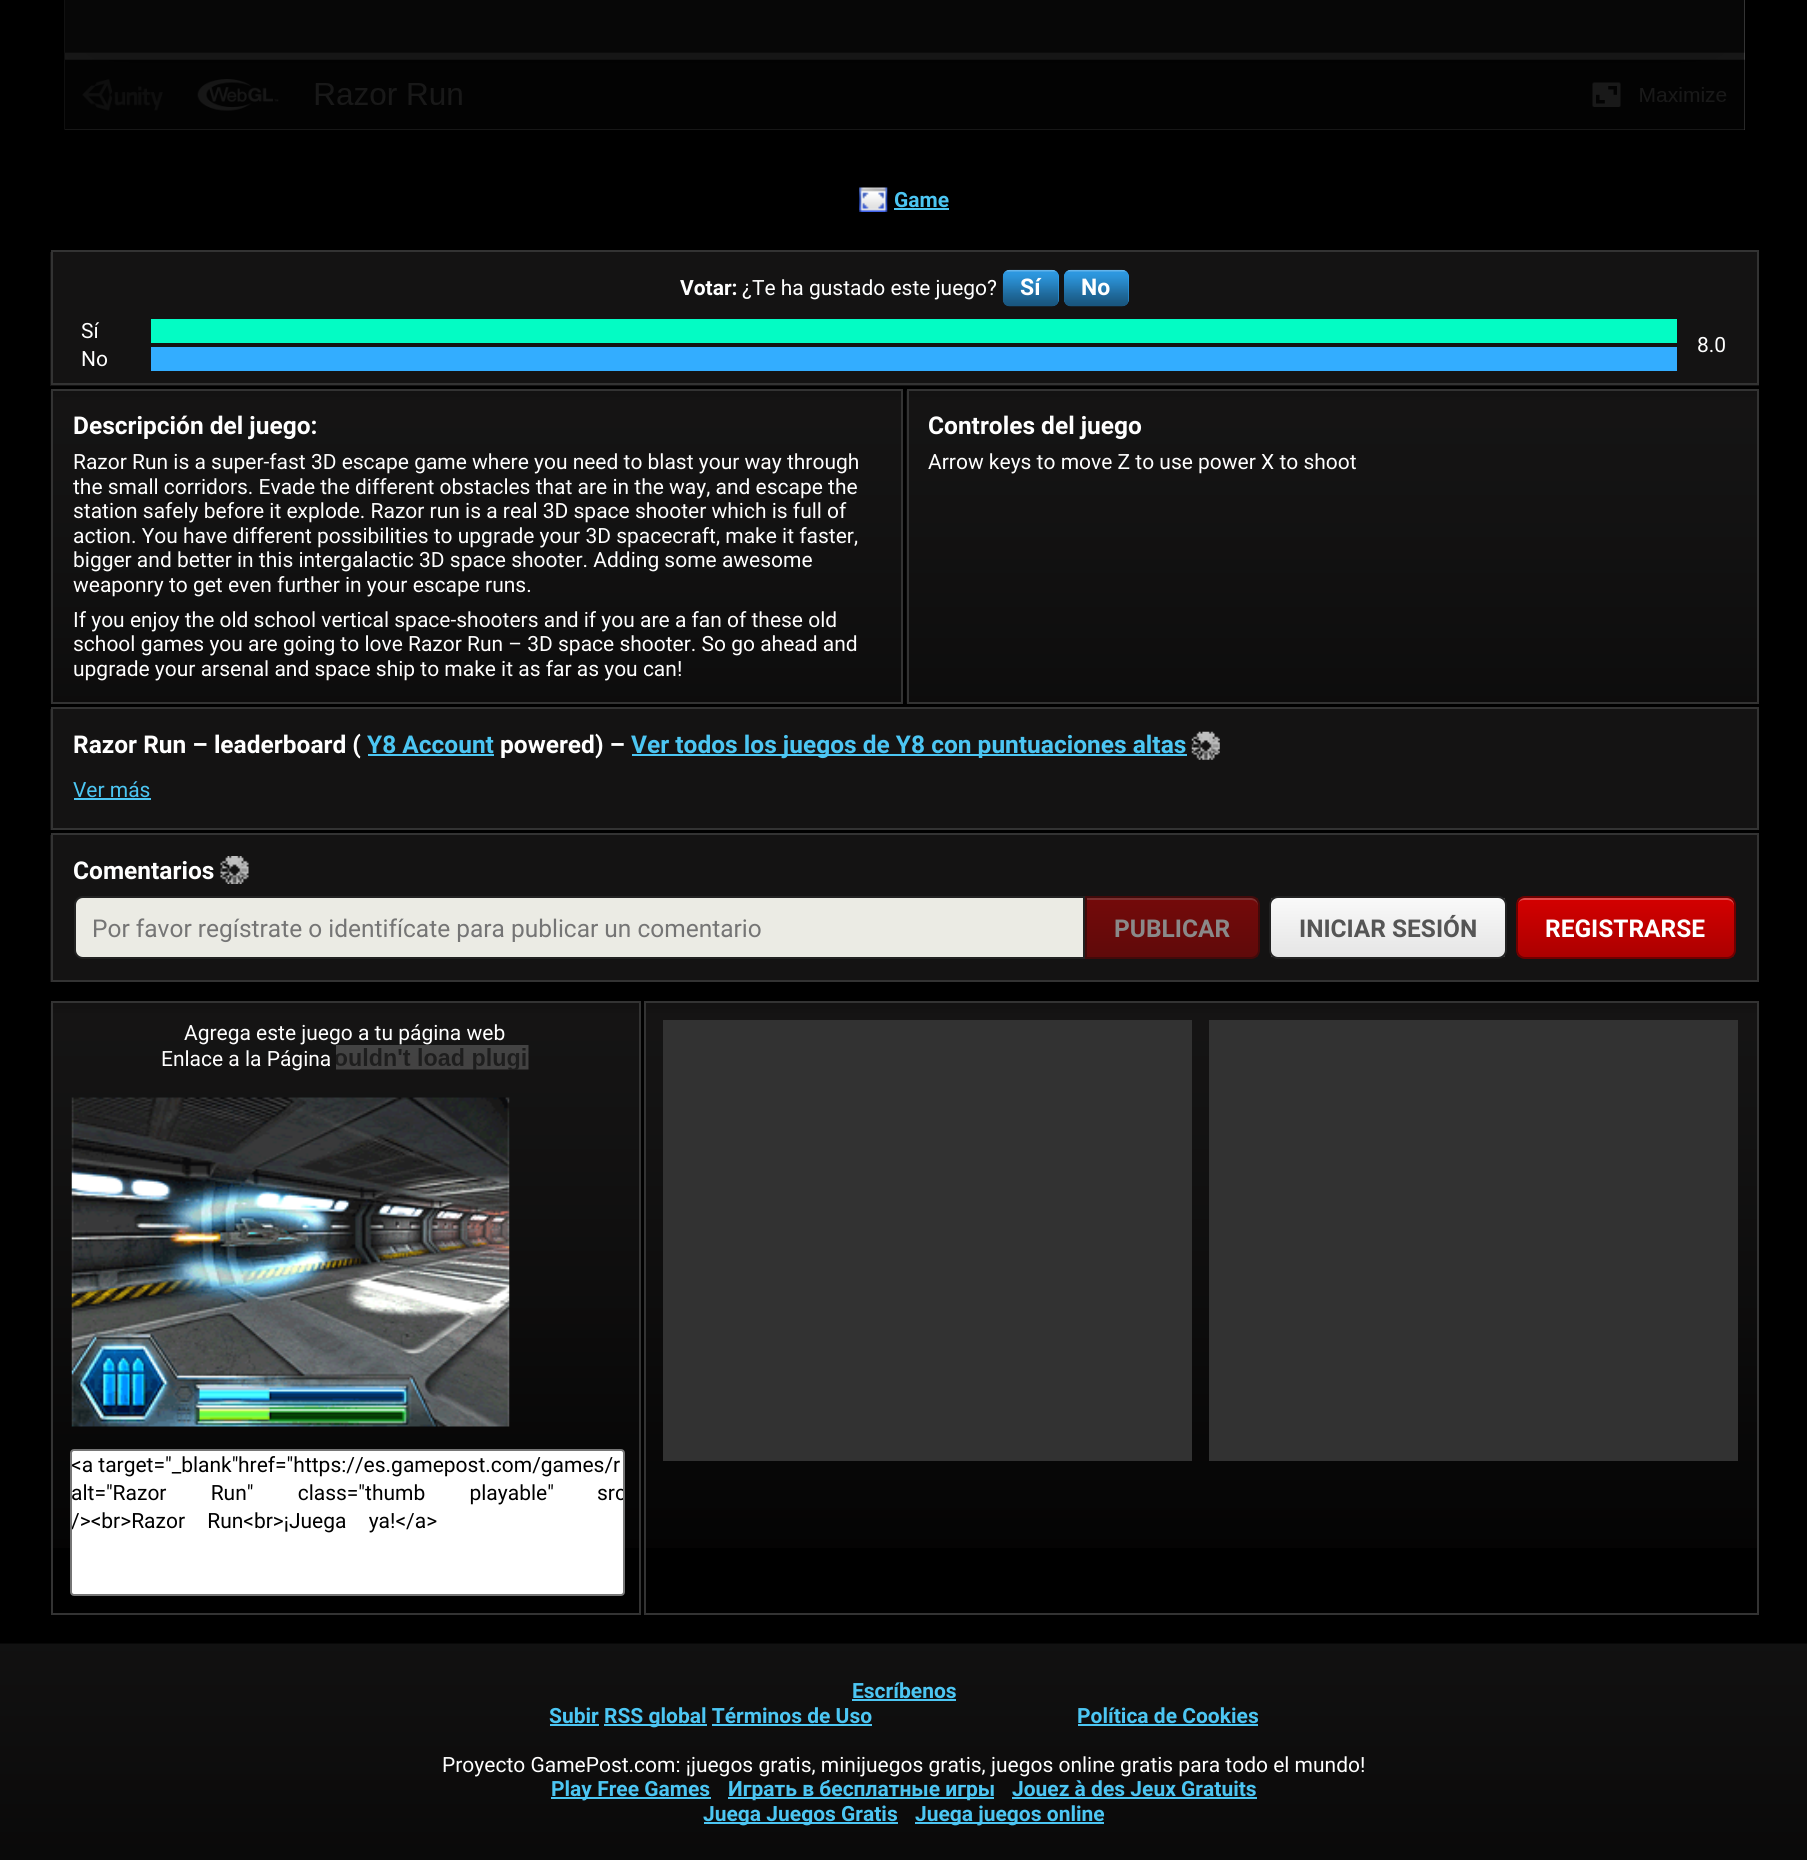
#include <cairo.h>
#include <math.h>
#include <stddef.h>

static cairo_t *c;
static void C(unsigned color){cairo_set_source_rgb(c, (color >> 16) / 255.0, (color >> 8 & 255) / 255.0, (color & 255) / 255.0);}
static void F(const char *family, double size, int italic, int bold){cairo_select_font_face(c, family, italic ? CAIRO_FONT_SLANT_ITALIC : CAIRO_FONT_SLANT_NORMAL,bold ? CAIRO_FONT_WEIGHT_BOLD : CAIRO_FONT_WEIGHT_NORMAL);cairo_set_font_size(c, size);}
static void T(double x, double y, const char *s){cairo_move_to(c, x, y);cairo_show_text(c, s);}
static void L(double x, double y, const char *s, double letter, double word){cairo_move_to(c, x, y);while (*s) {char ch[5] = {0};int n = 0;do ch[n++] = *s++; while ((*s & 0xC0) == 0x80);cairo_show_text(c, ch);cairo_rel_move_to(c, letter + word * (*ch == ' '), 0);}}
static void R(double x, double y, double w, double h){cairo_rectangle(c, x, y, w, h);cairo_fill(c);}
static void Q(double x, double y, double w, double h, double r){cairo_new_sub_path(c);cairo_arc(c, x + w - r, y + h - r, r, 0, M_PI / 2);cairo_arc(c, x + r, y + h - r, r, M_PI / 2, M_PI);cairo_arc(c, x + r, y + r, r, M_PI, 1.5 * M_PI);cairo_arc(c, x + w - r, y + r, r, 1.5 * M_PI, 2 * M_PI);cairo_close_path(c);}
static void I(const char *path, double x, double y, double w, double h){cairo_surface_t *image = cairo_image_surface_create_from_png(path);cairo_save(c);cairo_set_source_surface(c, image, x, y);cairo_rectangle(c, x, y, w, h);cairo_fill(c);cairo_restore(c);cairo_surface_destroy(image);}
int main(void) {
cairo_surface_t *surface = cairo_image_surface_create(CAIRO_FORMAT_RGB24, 1807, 1860);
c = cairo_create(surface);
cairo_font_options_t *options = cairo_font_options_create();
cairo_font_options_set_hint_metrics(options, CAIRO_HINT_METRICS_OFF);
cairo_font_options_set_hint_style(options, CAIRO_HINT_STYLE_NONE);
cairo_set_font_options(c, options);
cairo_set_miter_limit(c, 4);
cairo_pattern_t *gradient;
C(0x000000);
cairo_paint(c);
I("1.png",64,0,1681,130);
I("2.png",859,187,29,25);
F("Roboto",21,0,1);
C(0x4cc6f3);
T(894,207,"Game");
R(894,208,55,2);
C(0x141313);
R(50,252,1709,134);
cairo_rectangle(c,52,251,1706,133);
C(0x333333);
cairo_stroke(c);
C(0xffffff);
T(680,295,"Votar:");
F("Roboto",21,0,0);
T(742,295,"¿Te ha gustado este juego?");
C(0x33adff);
Q(1003,270,56,36,7);
cairo_fill(c);
I("3.png",1002,269,57,38);
F("Roboto",23,0,1);
C(0xffffff);
T(1020,295,"Sí");
C(0x33adff);
Q(1064,270,65,36,7);
cairo_fill(c);
I("4.png",1064,269,65,38);
C(0xffffff);
T(1081,295,"No");
F("Roboto",21,0,0);
T(81,338,"Sí");
C(0x03fcc4);
R(151,319,1526,24);
C(0xffffff);
T(1697,352,"8.0");
T(81,366,"No");
C(0x33adff);
R(151,347,1526,24);
I("5.png",50,390,851,314);
cairo_rectangle(c,52,390,850,313);
C(0x333333);
cairo_stroke(c);
F("Roboto",24.5,0,1);
C(0xffffff);
T(73,434,"Descripción del juego:");
F("Roboto",21,0,0);
T(73,469,"Razor Run is a super-fast 3D escape game where you need to blast your way through");
T(73,494,"the small corridors. Evade the different obstacles that are in the way, and escape the");
T(73,518,"station safely before it explode. Razor run is a real 3D space shooter which is full of");
T(73,543,"action. You have different possibilities to upgrade your 3D spacecraft, make it faster,");
T(73,567,"bigger and better in this intergalactic 3D space shooter. Adding some awesome");
T(73,592,"weaponry to get even further in your escape runs.");
T(73,627,"If you enjoy the old school vertical space-shooters and if you are a fan of these old");
T(73,651,"school games you are going to love Razor Run – 3D space shooter. So go ahead and");
T(73,676,"upgrade your arsenal and space ship to make it as far as you can!");
I("6.png",906,390,851,314);
cairo_rectangle(c,908,390,850,313);
C(0x333333);
cairo_stroke(c);
F("Roboto",24.5,0,1);
C(0xffffff);
T(928,434,"Controles del juego");
F("Roboto",21,0,0);
T(928,469,"Arrow keys to move Z to use power X to shoot");
C(0x141313);
R(50,709,1707,121);
cairo_rectangle(c,52,708,1706,121);
C(0x333333);
cairo_stroke(c);
F("Roboto",24.5,0,1);
C(0xffffff);
T(73,753,"Razor Run – leaderboard (");
C(0x4cc6f3);
T(367,753,"Y8 Account");
R(368,754,126,2);
C(0xffffff);
T(500,753,"powered) –");
C(0x4cc6f3);
R(632,754,555,2);
T(631,753,"Ver todos los juegos de Y8 con puntuaciones altas");
I("7.png",1191,731,29,29);
F("Roboto",21,0,0);
T(73,797,"Ver más");
R(74,798,77,2);
C(0x141313);
R(50,835,1707,147);
cairo_rectangle(c,52,834,1706,147);
C(0x333333);
cairo_stroke(c);
F("Roboto",24.5,0,1);
C(0xffffff);
T(73,879,"Comentarios");
I("8.png",220,856,29,28);
C(0xebebe4);
cairo_new_path(c);
cairo_move_to(c,83,897);
cairo_line_to(c,1084,897);
cairo_line_to(c,1084,958);
cairo_line_to(c,83,958);
cairo_curve_to(c,78.5,958,75,954.5,75,950);
cairo_line_to(c,75,905);
cairo_curve_to(c,75,900.5,78.5,897,83,897);
cairo_close_path(c);
cairo_fill_preserve(c);
C(0x222222);
cairo_stroke(c);
F("Roboto",24.5,0,0);
C(0x757575);
T(92,937,"Por favor regístrate o identifícate para publicar un comentario");
cairo_save(c);
cairo_new_path(c);
cairo_move_to(c,1085,896);
cairo_line_to(c,1251,896);
cairo_curve_to(c,1256,896,1260,900,1260,905);
cairo_line_to(c,1260,950);
cairo_curve_to(c,1260,955,1256,959,1251,959);
cairo_line_to(c,1085,959);
cairo_close_path(c);
cairo_clip(c);
gradient = cairo_pattern_create_linear(1173,898,1173,957);
cairo_pattern_add_color_stop_rgba(gradient,0,0.455,0.039,0.039,1);
cairo_pattern_add_color_stop_rgba(gradient,1,0.376,0.039,0.039,1);
cairo_set_source(c,gradient);
cairo_pattern_destroy(gradient);
R(1087,898,171,59);
cairo_restore(c);
C(0x7a3030);
cairo_new_path(c);
cairo_move_to(c,1087,900);
cairo_line_to(c,1251,900);
cairo_curve_to(c,1255,900,1258,903,1258,906);
cairo_line_to(c,1258,905);
cairo_curve_to(c,1258,901,1255,898,1251,898);
cairo_line_to(c,1087,898);
cairo_close_path(c);
cairo_fill(c);
cairo_new_path(c);
cairo_move_to(c,1086,897);
cairo_line_to(c,1251,897);
cairo_curve_to(c,1255.5,897,1259,900.5,1259,905);
cairo_line_to(c,1259,950);
cairo_curve_to(c,1259,954.5,1255.5,958,1251,958);
cairo_line_to(c,1086,958);
cairo_close_path(c);
C(0x410a0a);
cairo_stroke(c);
F("Roboto",24.5,0,1);
C(0x8a8989);
T(1114,937,"PUBLICAR");
cairo_save(c);
Q(1269,896,238,63,9);
cairo_clip(c);
gradient = cairo_pattern_create_linear(1388,898,1388,957);
cairo_pattern_add_color_stop_rgba(gradient,0,0.976,0.976,0.976,1);
cairo_pattern_add_color_stop_rgba(gradient,1,0.898,0.898,0.898,1);
cairo_set_source(c,gradient);
cairo_pattern_destroy(gradient);
R(1271,898,234,59);
cairo_restore(c);
Q(1270,897,236,61,8);
C(0x222222);
cairo_stroke(c);
C(0x555555);
T(1299,937,"INICIAR SESIÓN");
cairo_save(c);
Q(1516,896,220,63,9);
cairo_clip(c);
gradient = cairo_pattern_create_linear(1626,898,1626,957);
cairo_pattern_add_color_stop_rgba(gradient,0,0.831,0,0,1);
cairo_pattern_add_color_stop_rgba(gradient,1,0.671,0,0,1);
cairo_set_source(c,gradient);
cairo_pattern_destroy(gradient);
R(1517,898,217,59);
cairo_restore(c);
cairo_set_source_rgba(c,1,1,1,0.3);
cairo_new_path(c);
cairo_move_to(c,1524,900);
cairo_line_to(c,1727,900);
cairo_curve_to(c,1731,900,1734,903,1734,906);
cairo_line_to(c,1734,905);
cairo_curve_to(c,1734,901,1731,898,1727,898);
cairo_line_to(c,1524,898);
cairo_curve_to(c,1520,898,1517,901,1517,905);
cairo_line_to(c,1517,906);
cairo_curve_to(c,1517,903,1520,900,1524,900);
cairo_close_path(c);
cairo_fill(c);
Q(1517,897,218,61,8);
C(0x6e0000);
cairo_stroke(c);
C(0xffffff);
T(1545,937,"REGISTRARSE");
I("9.png",50,1003,589,545);
cairo_rectangle(c,52,1002,588,612);
C(0x333333);
cairo_stroke(c);
F("Roboto",21,0,0);
C(0xffffff);
T(184,1040,"Agrega este juego a tu página web");
T(161,1066,"Enlace a la Página");
I("10.png",336,1045,193,25);
I("11.png",71,1097,439,330);
Q(71,1450,553,145,3);
cairo_fill_preserve(c);
C(0x767676);
cairo_stroke(c);
cairo_save(c);
cairo_rectangle(c,72,1451,551,143);
cairo_clip(c);
C(0x000000);
T(71,1472,"<a target=\"_blank\"");
cairo_restore(c);
C(0x000000);
T(238,1472,"href=\"https://es.gamepost.com/games/r");
L(71,1500,"alt=\"Razor Run\" class=\"thumb playable\"",0,39);
cairo_save(c);
cairo_rectangle(c,72,1451,551,143);
cairo_clip(c);
T(597,1500,"src");
L(71,1528,"/><br>Razor Run<br>¡Juega ya!</a>",0,17);
cairo_restore(c);
I("12.png",646,1003,1111,545);
cairo_rectangle(c,645,1002,1113,612);
C(0x333333);
cairo_stroke(c);
C(0x323232);
R(663,1020,529,441);
R(1209,1020,529,441);
I("13.png",0,1643,1807,217);
F("Roboto",21,0,1);
C(0x4cc6f3);
T(852,1698,"Escríbenos");
R(852,1699,104,2);
T(549,1723,"Subir");
R(550,1724,49,2);
R(604,1724,103,2);
T(604,1723,"RSS global Términos de Uso");
T(1077,1723,"Política de Cookies");
R(1078,1724,180,2);
R(712,1724,160,2);
F("Roboto",21,0,0);
C(0xffffff);
T(442,1772,"Proyecto GamePost.com: ¡juegos gratis, minijuegos gratis, juegos online gratis para todo el mundo!");
C(0x4cc6f3);
R(551,1797,160,2);
F("Roboto",21,0,1);
T(551,1796,"Play Free Games");
R(728,1797,266,2);
T(728,1796,"Играть в бесплатные игры");
T(1012,1796,"Jouez à des Jeux Gratuits");
R(1012,1797,245,2);
R(704,1822,194,2);
T(703,1821,"Juega Juegos Gratis");
R(915,1822,189,2);
T(915,1821,"Juega juegos online");
cairo_surface_write_to_png(surface, "o.png");
cairo_font_options_destroy(options);
cairo_destroy(c);
cairo_surface_destroy(surface);
return 0;
}
